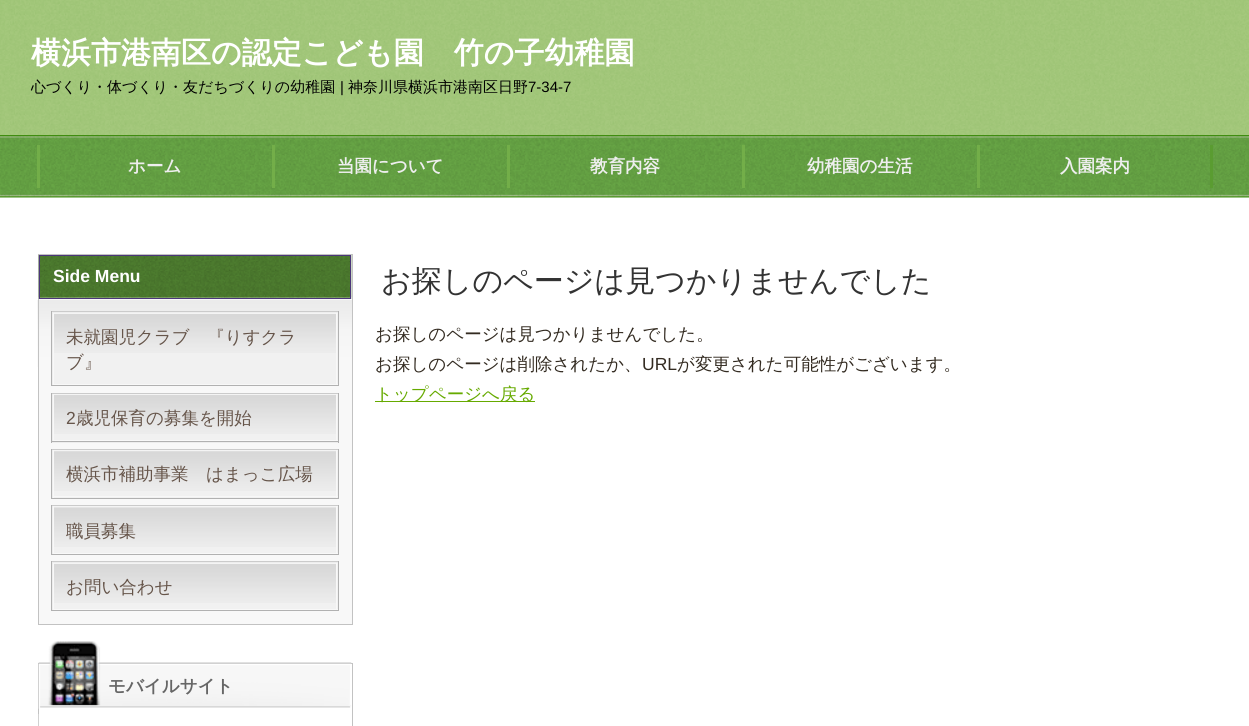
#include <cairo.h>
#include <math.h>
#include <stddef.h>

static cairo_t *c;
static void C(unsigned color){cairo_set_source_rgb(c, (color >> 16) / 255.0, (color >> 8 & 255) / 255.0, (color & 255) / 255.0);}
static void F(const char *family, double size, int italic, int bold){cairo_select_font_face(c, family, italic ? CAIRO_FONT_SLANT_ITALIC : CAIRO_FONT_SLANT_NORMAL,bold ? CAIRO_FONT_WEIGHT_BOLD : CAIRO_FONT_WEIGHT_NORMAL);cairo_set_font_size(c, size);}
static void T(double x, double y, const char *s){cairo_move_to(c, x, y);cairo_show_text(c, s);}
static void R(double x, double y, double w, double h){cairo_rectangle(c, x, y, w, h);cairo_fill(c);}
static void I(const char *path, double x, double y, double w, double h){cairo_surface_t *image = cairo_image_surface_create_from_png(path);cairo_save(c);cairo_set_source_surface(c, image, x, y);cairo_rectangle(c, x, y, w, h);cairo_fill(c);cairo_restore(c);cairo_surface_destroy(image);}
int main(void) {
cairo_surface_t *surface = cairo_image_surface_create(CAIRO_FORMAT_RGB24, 1249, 726);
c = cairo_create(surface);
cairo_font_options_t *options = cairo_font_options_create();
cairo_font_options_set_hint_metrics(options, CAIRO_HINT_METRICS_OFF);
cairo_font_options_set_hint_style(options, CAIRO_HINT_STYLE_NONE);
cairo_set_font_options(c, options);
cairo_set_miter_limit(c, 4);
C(0xffffff);
cairo_paint(c);
I("1.png",0,0,1249,135);
F("WenQuanYi Zen Hei",30,0,1);
C(0xffffff);
T(31,63,"横浜市港南区の認定こども園　竹の子幼稚園");
F("WenQuanYi Zen Hei Medium",15,0,0);
C(0x000000);
T(31,92,"心づくり・体づくり・友だちづくりの幼稚園");
F("Liberation Sans",15,0,0);
T(340,92,"|");
F("WenQuanYi Zen Hei Medium",15,0,0);
T(348,92,"神奈川県横浜市港南区日野");
F("Liberation Sans",15,0,0);
T(528,92,"7-34-7");
I("2.png",0,135,1249,63);
C(0x5a9c31);
R(1210,145,3,43);
C(0x73ae49);
R(37,145,3,43);
F("WenQuanYi Zen Hei",17.5,0,1);
C(0xeeeeee);
T(128,172,"ホーム");
C(0x73ae49);
R(272,145,3,43);
C(0xeeeeee);
T(337,172,"当園について");
C(0x73ae49);
R(507,145,3,43);
C(0xeeeeee);
T(590,172,"教育内容");
C(0x73ae49);
R(742,145,3,43);
C(0xeeeeee);
T(807,172,"幼稚園の生活");
C(0x73ae49);
R(977,145,3,43);
C(0xeeeeee);
T(1060,172,"入園案内");
C(0xf8f8f8);
R(39,255,313,369);
I("3.png",37,300,315,67);
cairo_rectangle(c,38.5,254.5,314,370);
C(0xc2c2c2);
cairo_set_line_width(c,1);
cairo_stroke(c);
I("4.png",38,255,314,44);
cairo_rectangle(c,39.5,255.5,311,43);
C(0x4b367a);
cairo_stroke(c);
F("Liberation Sans",17.5,0,1);
C(0xffffff);
T(53,282,"Side Menu");
C(0xededed);
R(52,317,286,68);
C(0xcbcbcb);
R(51,311,288,1);
C(0xb1b1b1);
R(338,311,1,75);
R(51,385,288,1);
R(51,311,1,75);
C(0xf1f1f1);
R(54,314,284,70);
I("5.png",54,314,282,39);
C(0xf4f4f4);
R(53,313,285,1);
C(0xf8f8f8);
R(336,313,1,72);
R(53,384,285,1);
R(53,313,1,72);
F("WenQuanYi Zen Hei Medium",17.5,0,0);
C(0x66554a);
T(66,343,"未就園児クラブ　『りすクラ");
T(66,368,"ブ』");
C(0xededed);
R(52,394,286,49);
C(0xcbcbcb);
R(51,393,288,1);
C(0xb1b1b1);
R(338,393,1,50);
R(51,441,288,1);
R(51,393,1,50);
C(0xf1f1f1);
R(54,395,284,45);
I("6.png",54,395,282,39);
C(0xf4f4f4);
R(53,394,285,1);
C(0xf8f8f8);
R(336,394,1,47);
R(53,440,285,1);
R(53,394,1,47);
F("Liberation Sans",17.5,0,0);
C(0x66554a);
T(66,424,"2");
F("WenQuanYi Zen Hei Medium",17.5,0,0);
T(76,424,"歳児保育の募集を開始");
C(0xededed);
R(52,450,1,48);
C(0xcbcbcb);
R(51,449,288,1);
C(0xb1b1b1);
R(338,449,1,50);
R(51,498,288,1);
R(51,449,1,50);
C(0xf1f1f1);
R(54,451,284,47);
I("7.png",54,451,282,40);
C(0xf4f4f4);
R(53,450,285,1);
C(0xf8f8f8);
R(336,450,1,48);
R(53,496,285,1);
R(53,450,1,1);
C(0x66554a);
T(66,480,"横浜市補助事業　はまっこ広場");
C(0xededed);
R(52,506,1,48);
C(0xcbcbcb);
R(51,505,288,1);
C(0xb1b1b1);
R(338,505,1,50);
R(51,554,288,1);
R(51,505,1,50);
C(0xf1f1f1);
R(54,507,284,46);
I("8.png",54,507,282,40);
C(0xf4f4f4);
R(53,506,285,1);
C(0xf8f8f8);
R(336,506,1,48);
R(53,506,1,1);
C(0x66554a);
T(66,537,"職員募集");
C(0xededed);
R(52,562,286,48);
C(0xcbcbcb);
R(51,561,288,1);
C(0xb1b1b1);
R(338,561,1,50);
R(51,610,288,1);
R(51,561,1,50);
C(0xf1f1f1);
R(54,564,284,45);
I("5.png",54,564,282,39);
C(0xf4f4f4);
R(53,563,285,1);
C(0xf8f8f8);
R(336,563,1,47);
R(53,609,285,1);
R(53,563,1,47);
C(0x66554a);
T(66,593,"お問い合わせ");
cairo_rectangle(c,38.5,663.5,314,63);
C(0xc2c2c2);
cairo_stroke(c);
I("9.png",38,641,314,68);
F("WenQuanYi Zen Hei",17.5,0,1);
C(0x666666);
T(108,692,"モバイルサイト");
C(0xd1d1d1);
R(38,714,1,12);
F("WenQuanYi Zen Hei Medium",30,0,0);
C(0x333333);
T(381,291,"お探しのページは見つかりませんでした");
F("WenQuanYi Zen Hei Medium",17.5,0,0);
C(0x332b21);
T(375,340,"お探しのページは見つかりませんでした。");
T(375,370,"お探しのページは削除されたか、");
F("Liberation Sans",17.5,0,0);
T(642,370,"URL");
F("WenQuanYi Zen Hei Medium",17.5,0,0);
T(677,370,"が変更された可能性がございます。");
C(0x66aa00);
R(375,401,160,1);
T(375,400,"トップページへ戻る");
cairo_surface_write_to_png(surface, "o.png");
cairo_font_options_destroy(options);
cairo_destroy(c);
cairo_surface_destroy(surface);
return 0;
}
